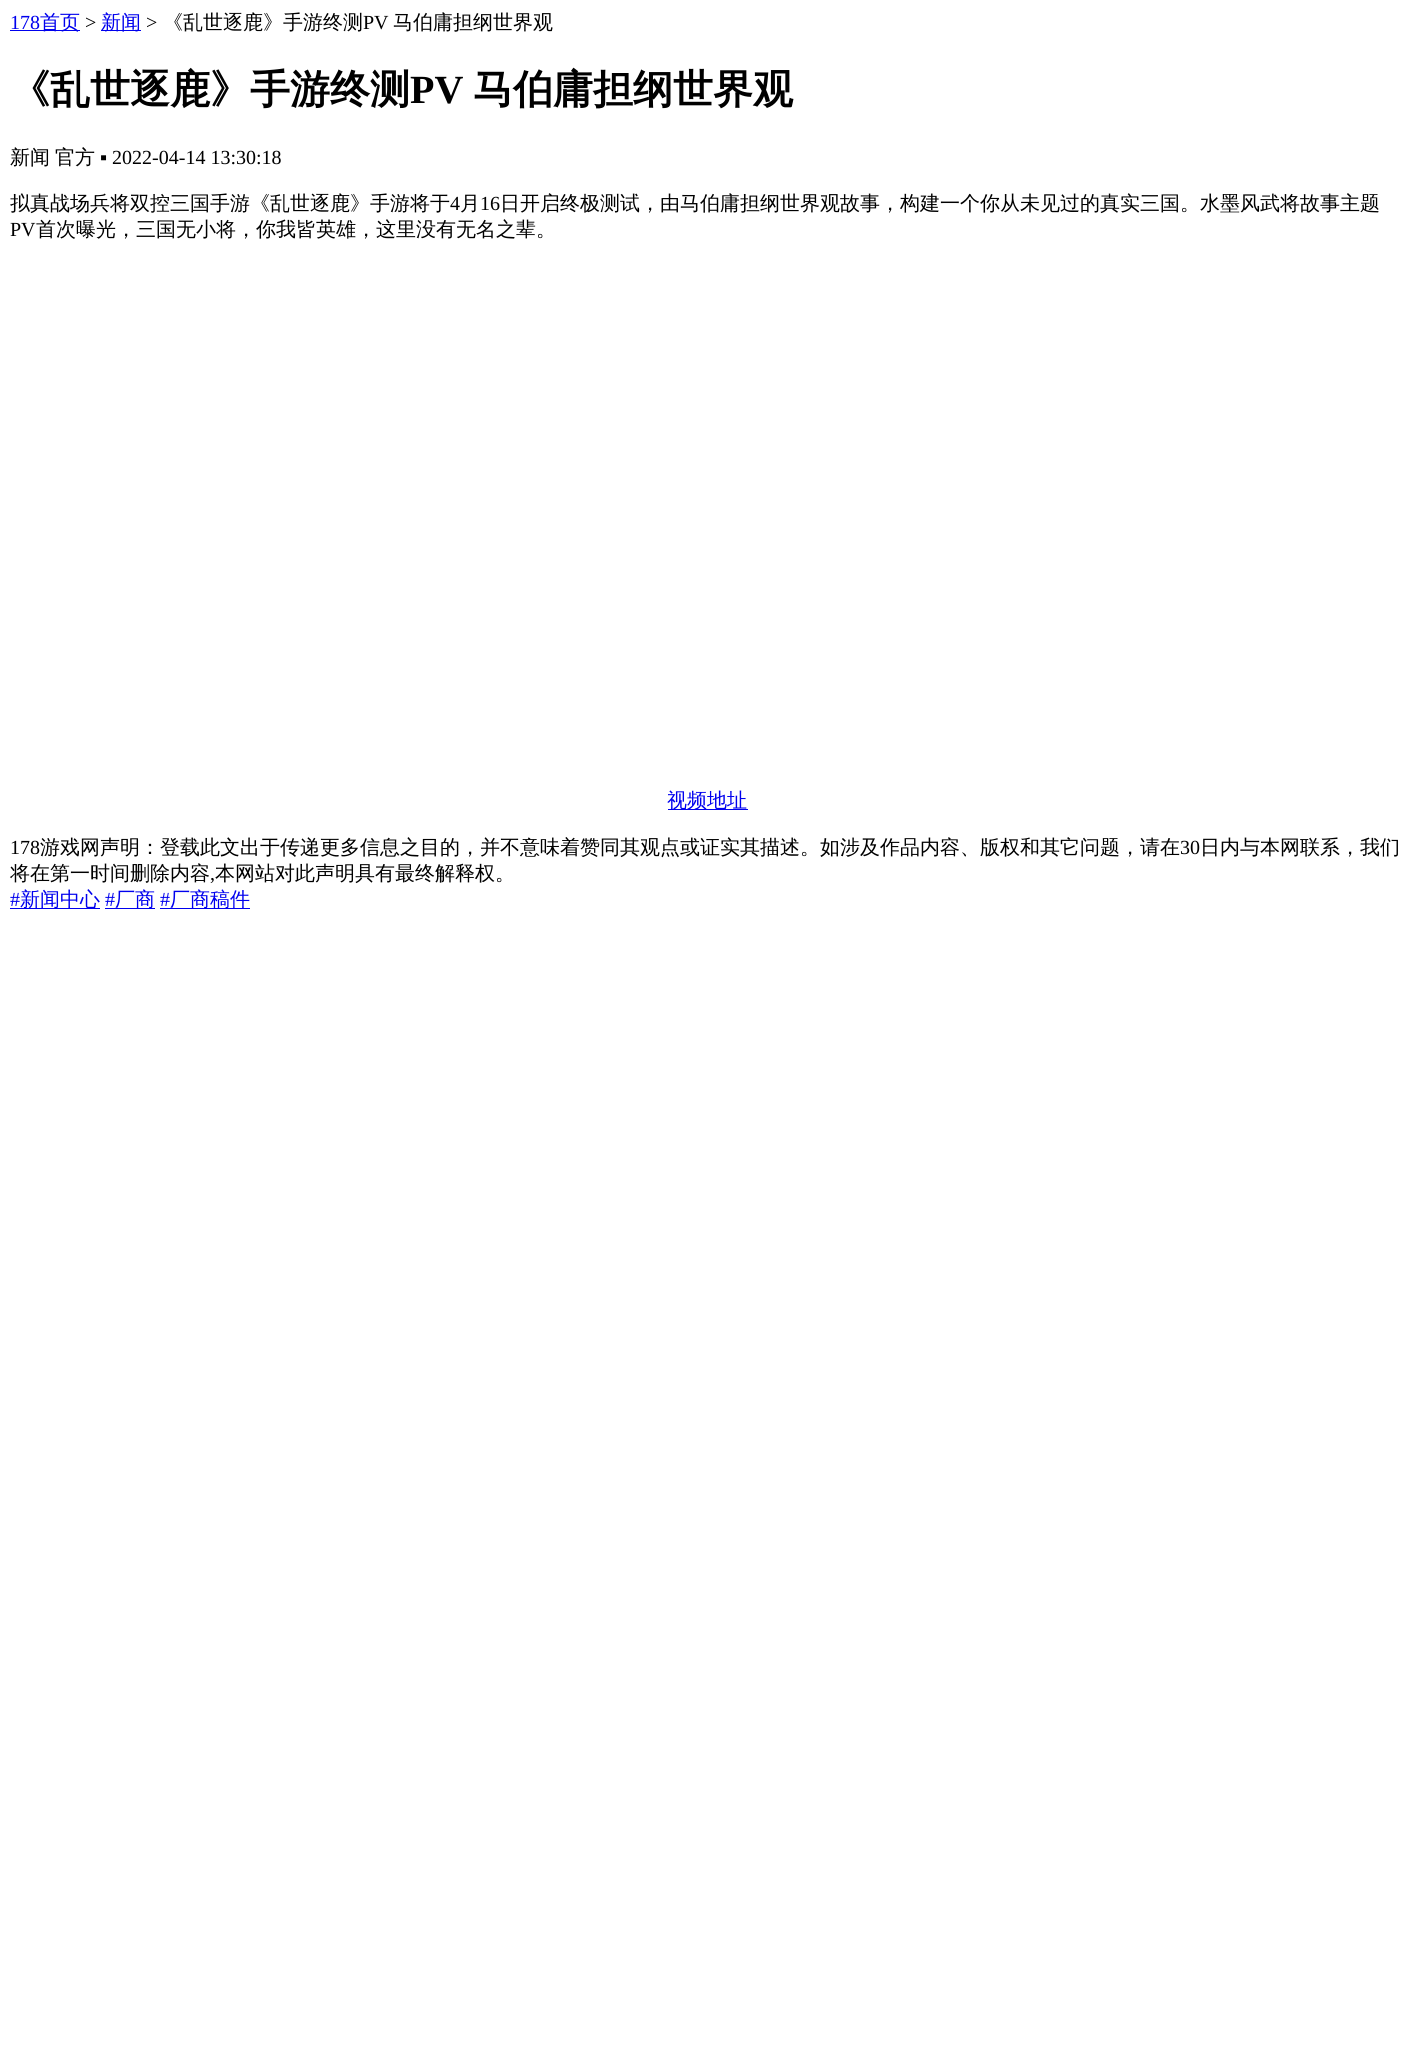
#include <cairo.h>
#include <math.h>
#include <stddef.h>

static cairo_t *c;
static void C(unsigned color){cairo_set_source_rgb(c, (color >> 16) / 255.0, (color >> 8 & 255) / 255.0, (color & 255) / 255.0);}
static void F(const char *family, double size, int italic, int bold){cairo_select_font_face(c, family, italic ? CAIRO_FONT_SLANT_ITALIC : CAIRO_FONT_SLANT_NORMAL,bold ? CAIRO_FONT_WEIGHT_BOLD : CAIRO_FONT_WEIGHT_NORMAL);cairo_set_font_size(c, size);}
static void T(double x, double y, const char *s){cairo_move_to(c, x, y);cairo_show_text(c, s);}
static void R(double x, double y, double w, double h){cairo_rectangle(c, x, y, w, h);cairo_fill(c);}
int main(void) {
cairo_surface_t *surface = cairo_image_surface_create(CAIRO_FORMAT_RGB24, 1413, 2052);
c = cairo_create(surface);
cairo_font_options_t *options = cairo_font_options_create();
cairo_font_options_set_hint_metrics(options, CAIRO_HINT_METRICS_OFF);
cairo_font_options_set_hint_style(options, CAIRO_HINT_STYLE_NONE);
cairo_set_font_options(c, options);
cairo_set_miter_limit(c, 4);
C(0xffffff);
cairo_paint(c);
F("Liberation Serif",20,0,0);
C(0x0000ee);
T(10,29,"178");
R(10,30,70,1);
F("WenQuanYi Zen Hei Medium",20,0,0);
T(40,29,"首页");
F("Liberation Serif",20,0,0);
C(0x000000);
T(85,29,">");
C(0x0000ee);
R(101,30,40,1);
F("WenQuanYi Zen Hei Medium",20,0,0);
T(101,29,"新闻");
F("Liberation Serif",20,0,0);
C(0x000000);
T(146,29,">");
F("WenQuanYi Zen Hei Medium",20,0,0);
T(163,29,"《乱世逐鹿》手游终测");
F("Liberation Serif",20,0,0);
T(363,29,"PV");
F("WenQuanYi Zen Hei Medium",20,0,0);
T(393,29,"马伯庸担纲世界观");
F("WenQuanYi Zen Hei",40,0,1);
T(10,103,"《乱世逐鹿》手游终测");
F("Liberation Serif",40,0,1);
T(410,103,"PV");
F("WenQuanYi Zen Hei",40,0,1);
T(473,103,"马伯庸担纲世界观");
F("WenQuanYi Zen Hei Medium",20,0,0);
T(10,164,"新闻");
T(55,164,"官方");
F("Liberation Serif",20,0,0);
T(100,164,"▪ 2022-04-14 13:30:18");
F("WenQuanYi Zen Hei Medium",20,0,0);
T(10,210,"拟真战场兵将双控三国手游《乱世逐鹿》手游将于");
F("Liberation Serif",20,0,0);
T(450,210,"4");
F("WenQuanYi Zen Hei Medium",20,0,0);
T(460,210,"月");
F("Liberation Serif",20,0,0);
T(480,210,"16");
F("WenQuanYi Zen Hei Medium",20,0,0);
T(500,210,"日开启终极测试，由马伯庸担纲世界观故事，构建一个你从未见过的真实三国。水墨风武将故事主题");
F("Liberation Serif",20,0,0);
T(10,236,"PV");
F("WenQuanYi Zen Hei Medium",20,0,0);
T(36,236,"首次曝光，三国无小将，你我皆英雄，这里没有无名之辈。");
C(0x0000ee);
R(668,809,80,1);
T(667,807,"视频地址");
F("Liberation Serif",20,0,0);
C(0x000000);
T(10,854,"178");
F("WenQuanYi Zen Hei Medium",20,0,0);
T(40,854,"游戏网声明：登载此文出于传递更多信息之目的，并不意味着赞同其观点或证实其描述。如涉及作品内容、版权和其它问题，请在");
F("Liberation Serif",20,0,0);
T(1180,854,"30");
F("WenQuanYi Zen Hei Medium",20,0,0);
T(1200,854,"日内与本网联系，我们");
T(10,880,"将在第一时间删除内容");
F("Liberation Serif",20,0,0);
T(210,880,",");
F("WenQuanYi Zen Hei Medium",20,0,0);
T(215,880,"本网站对此声明具有最终解释权。");
F("Liberation Serif",20,0,0);
C(0x0000ee);
T(10,906,"#");
R(10,908,90,1);
F("WenQuanYi Zen Hei Medium",20,0,0);
T(20,906,"新闻中心");
F("Liberation Serif",20,0,0);
T(105,906,"#");
R(105,908,50,1);
F("WenQuanYi Zen Hei Medium",20,0,0);
T(115,906,"厂商");
F("Liberation Serif",20,0,0);
T(160,906,"#");
R(160,908,90,1);
F("WenQuanYi Zen Hei Medium",20,0,0);
T(170,906,"厂商稿件");
cairo_surface_write_to_png(surface, "o.png");
cairo_font_options_destroy(options);
cairo_destroy(c);
cairo_surface_destroy(surface);
return 0;
}
